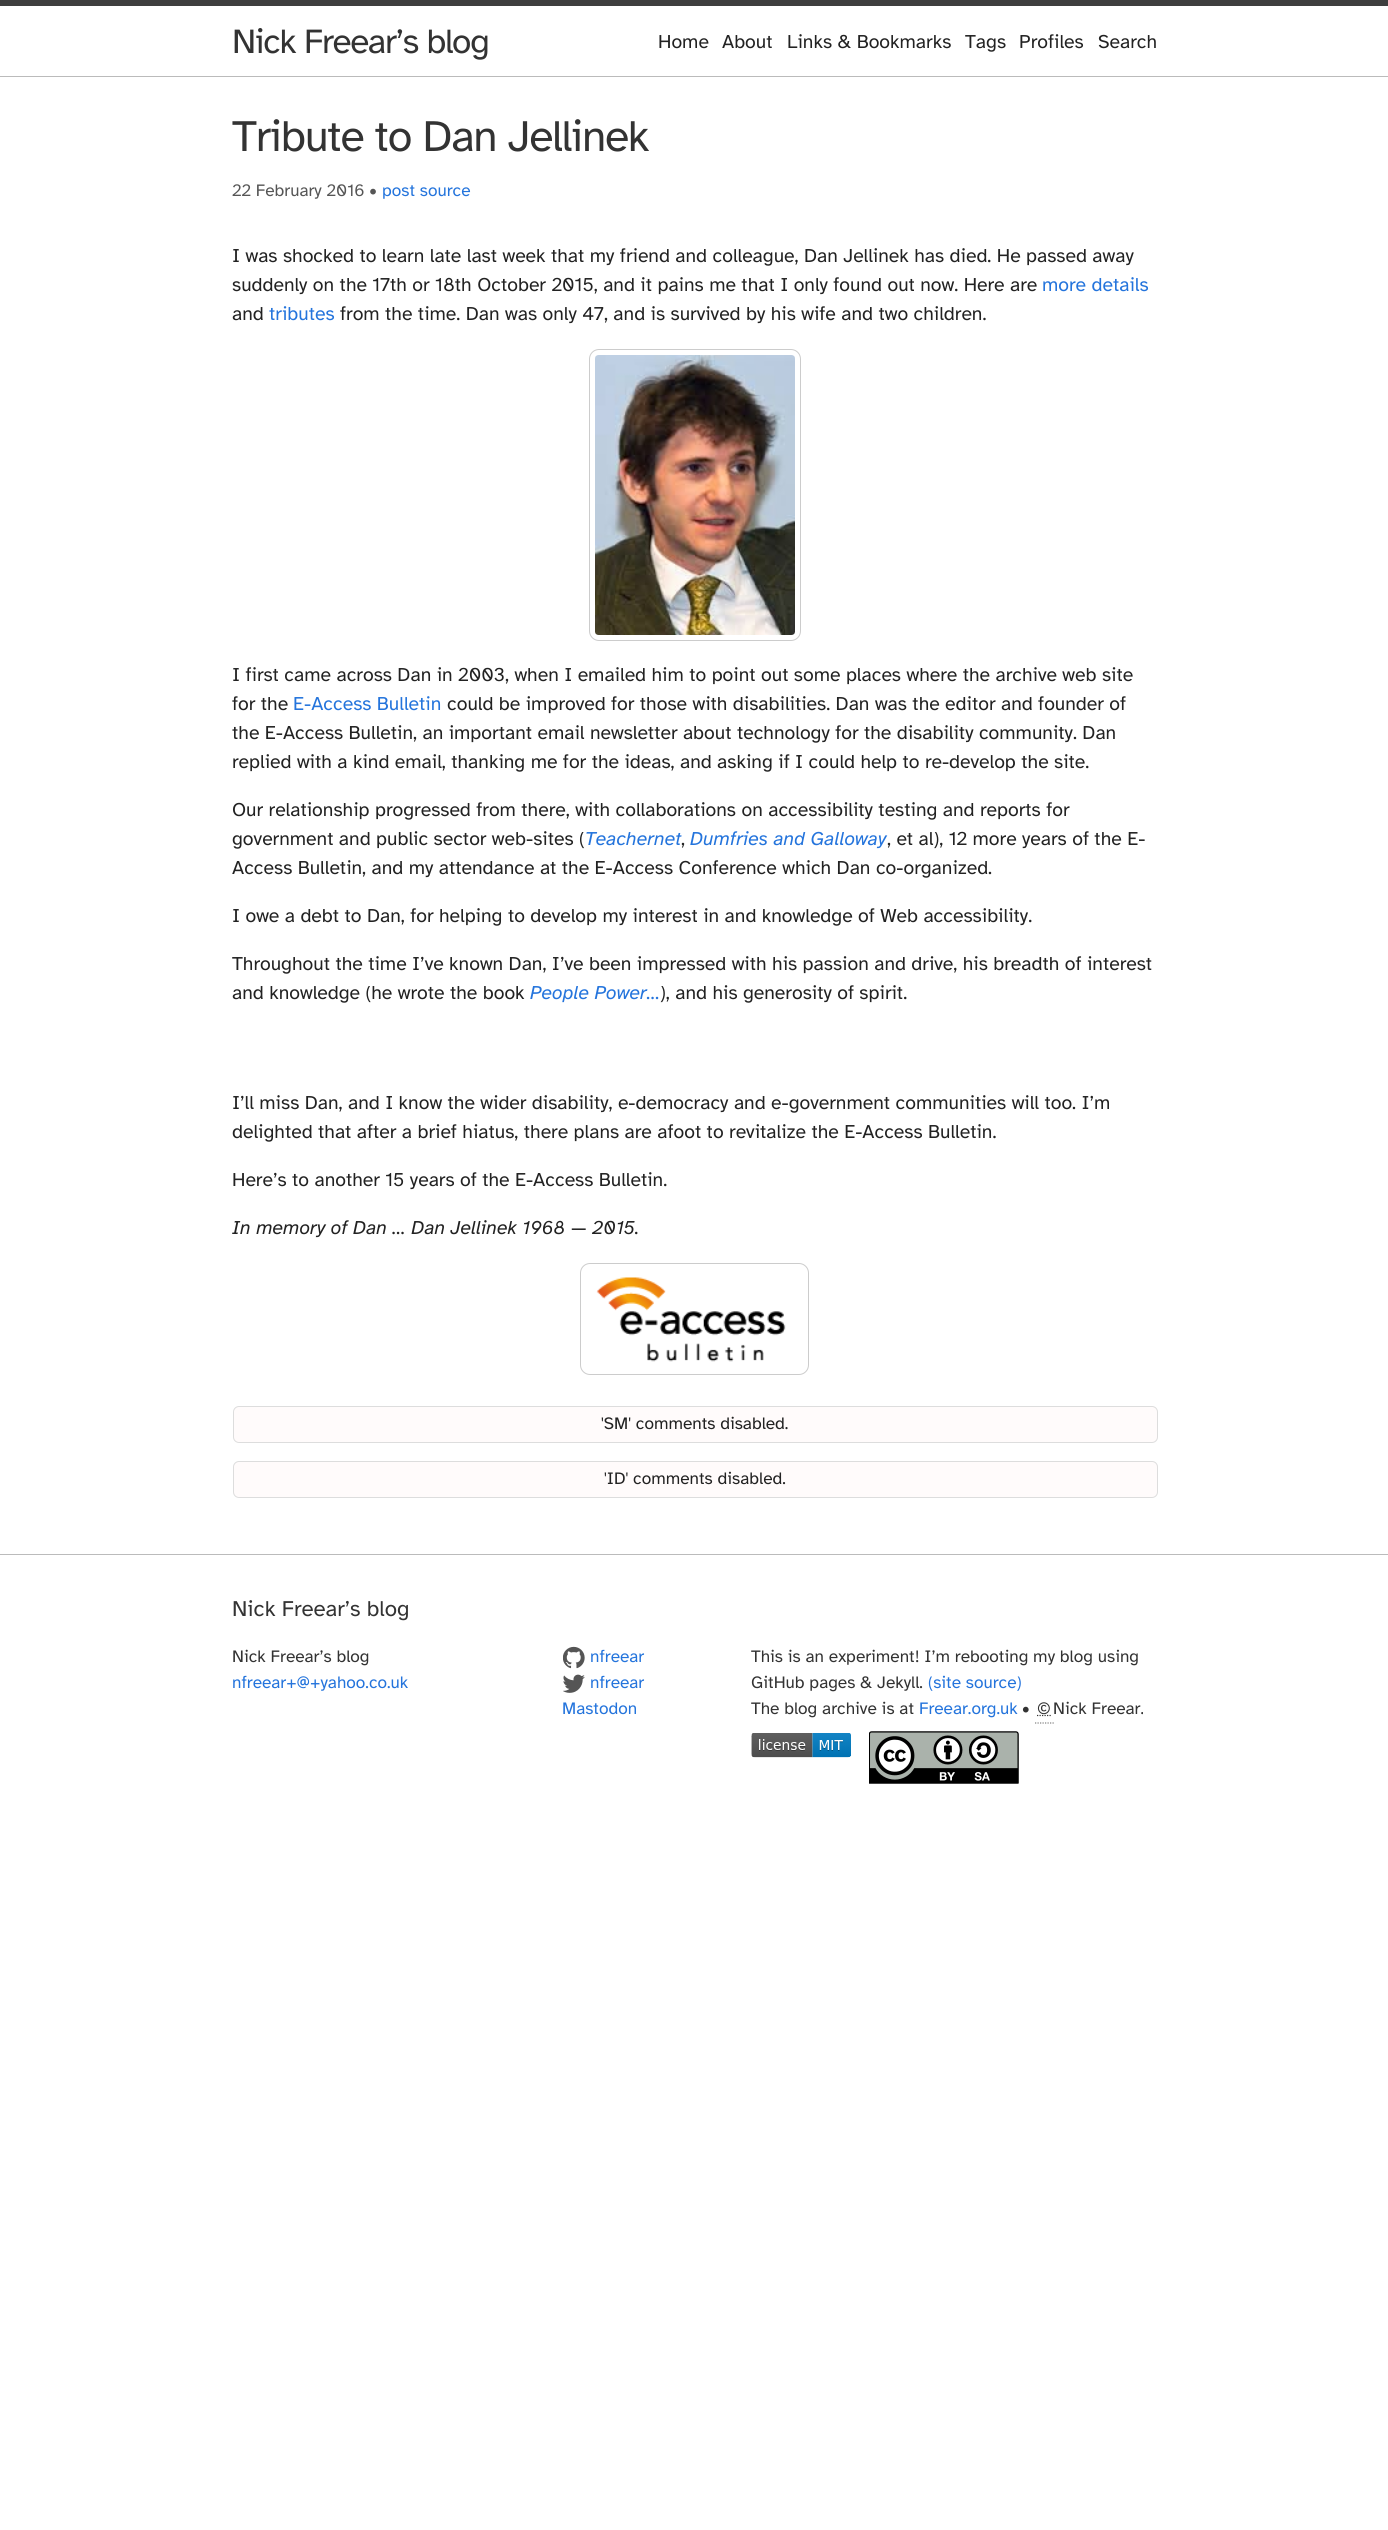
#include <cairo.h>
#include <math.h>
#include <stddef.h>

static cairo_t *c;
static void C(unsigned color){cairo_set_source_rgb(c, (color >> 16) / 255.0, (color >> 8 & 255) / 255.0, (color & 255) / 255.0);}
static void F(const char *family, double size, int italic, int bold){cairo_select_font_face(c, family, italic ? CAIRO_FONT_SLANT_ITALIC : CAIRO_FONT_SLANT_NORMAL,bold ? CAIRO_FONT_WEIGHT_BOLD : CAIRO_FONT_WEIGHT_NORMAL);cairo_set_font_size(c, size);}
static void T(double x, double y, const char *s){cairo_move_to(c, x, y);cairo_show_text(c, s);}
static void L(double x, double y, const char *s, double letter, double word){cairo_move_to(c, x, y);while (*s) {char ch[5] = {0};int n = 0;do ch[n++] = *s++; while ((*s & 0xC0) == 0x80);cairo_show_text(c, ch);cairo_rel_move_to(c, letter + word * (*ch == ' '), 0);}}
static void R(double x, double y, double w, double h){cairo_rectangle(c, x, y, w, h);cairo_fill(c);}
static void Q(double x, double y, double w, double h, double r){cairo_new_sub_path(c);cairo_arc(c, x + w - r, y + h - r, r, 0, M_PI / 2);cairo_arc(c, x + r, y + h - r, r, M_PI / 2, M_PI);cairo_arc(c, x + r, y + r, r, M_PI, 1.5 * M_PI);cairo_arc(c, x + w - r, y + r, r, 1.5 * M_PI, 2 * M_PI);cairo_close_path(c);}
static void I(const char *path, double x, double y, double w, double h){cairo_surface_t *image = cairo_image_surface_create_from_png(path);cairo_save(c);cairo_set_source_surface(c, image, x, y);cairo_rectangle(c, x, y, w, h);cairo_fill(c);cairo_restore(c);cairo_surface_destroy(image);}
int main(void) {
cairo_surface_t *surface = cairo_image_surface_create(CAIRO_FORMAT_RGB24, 1388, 2530);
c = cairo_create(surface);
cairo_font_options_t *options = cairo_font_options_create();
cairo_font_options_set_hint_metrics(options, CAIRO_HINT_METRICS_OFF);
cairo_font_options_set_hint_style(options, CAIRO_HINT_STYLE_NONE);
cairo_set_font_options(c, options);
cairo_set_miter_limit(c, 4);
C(0xffffff);
cairo_paint(c);
C(0x3e3e3e);
R(0,0,1388,6);
C(0xbbbbbb);
R(0,76,1388,1);
F("Atkinson Hyperlegible",35,0,0);
C(0x333333);
L(232,53,"Nick Freear’s blog",-1.25,0);
F("Atkinson Hyperlegible",19.4,0,0);
C(0x222222);
T(658,48,"Home");
T(722,48,"About");
T(787,48,"Links & Bookmarks");
T(965,48,"Tags");
T(1019,48,"Profiles");
T(1098,48,"Search");
F("Atkinson Hyperlegible",44.6,0,0);
C(0x333333);
L(232,151,"Tribute to Dan Jellinek",-1.25,0);
F("Atkinson Hyperlegible",17.25,0,0);
C(0x555555);
T(232,196,"22 February 2016 •");
C(0x2474dc);
T(382,196,"post source");
F("Atkinson Hyperlegible",19.4,0,0);
C(0x222222);
T(232,262,"I was shocked to learn late last week that my friend and colleague, Dan Jellinek has died. He passed away");
T(232,291,"suddenly on the 17th or 18th October 2015, and it pains me that I only found out now. Here are");
C(0x2474dc);
T(1042,291,"more details");
C(0x222222);
T(232,320,"and");
C(0x2474dc);
T(269,320,"tributes");
C(0x222222);
T(340,320,"from the time. Dan was only 47, and is survived by his wife and two children.");
I("1.png",595,355,200,280);
Q(589.5,349.5,211,291,9.5);
C(0xcccccc);
cairo_set_line_width(c,1);
cairo_stroke(c);
C(0x222222);
T(232,681,"I first came across Dan in 2003, when I emailed him to point out some places where the archive web site");
T(232,710,"for the");
C(0x2474dc);
T(293,710,"E-Access Bulletin");
C(0x222222);
T(447,710,"could be improved for those with disabilities. Dan was the editor and founder of");
T(232,739,"the E-Access Bulletin, an important email newsletter about technology for the disability community. Dan");
T(232,768,"replied with a kind email, thanking me for the ideas, and asking if I could help to re-develop the site.");
T(232,816,"Our relationship progressed from there, with collaborations on accessibility testing and reports for");
T(232,845,"government and public sector web-sites (");
F("Atkinson Hyperlegible",19.4,1,0);
C(0x2474dc);
T(585,845,"Teachernet");
F("Atkinson Hyperlegible",19.4,0,0);
C(0x222222);
T(681,845,",");
F("Atkinson Hyperlegible",19.4,1,0);
C(0x2474dc);
T(690,845,"Dumfries and Galloway");
F("Atkinson Hyperlegible",19.4,0,0);
C(0x222222);
T(887,845,", et al), 12 more years of the E-");
T(232,874,"Access Bulletin, and my attendance at the E-Access Conference which Dan co-organized.");
T(232,922,"I owe a debt to Dan, for helping to develop my interest in and knowledge of Web accessibility.");
T(232,970,"Throughout the time I’ve known Dan, I’ve been impressed with his passion and drive, his breadth of interest");
T(232,999,"and knowledge (he wrote the book");
F("Atkinson Hyperlegible",19.4,1,0);
C(0x2474dc);
T(530,999,"People Power…");
F("Atkinson Hyperlegible",19.4,0,0);
C(0x222222);
T(660,999,"), and his generosity of spirit.");
T(232,1109,"I’ll miss Dan, and I know the wider disability, e-democracy and e-government communities will too. I’m");
T(232,1138,"delighted that after a brief hiatus, there plans are afoot to revitalize the E-Access Bulletin.");
T(232,1186,"Here’s to another 15 years of the E-Access Bulletin.");
F("Atkinson Hyperlegible",19.4,1,0);
T(232,1234,"In memory of Dan … Dan Jellinek 1968 — 2015.");
I("2.png",596,1277,190,85);
Q(580.5,1263.5,228,111,9.5);
C(0xcccccc);
cairo_stroke(c);
C(0xfffbfb);
Q(233.5,1406.5,924,36,5.5);
cairo_fill_preserve(c);
C(0xdddddd);
cairo_stroke(c);
F("Atkinson Hyperlegible",17.25,0,0);
C(0x222222);
T(601,1429,"'SM' comments disabled.");
C(0xfffbfb);
Q(233.5,1461.5,924,36,5.5);
cairo_fill_preserve(c);
C(0xdddddd);
cairo_stroke(c);
C(0x222222);
T(604,1484,"'ID' comments disabled.");
C(0xbbbbbb);
R(0,1554,1388,1);
F("Atkinson Hyperlegible",22.25,0,0);
C(0x333333);
T(232,1616,"Nick Freear’s blog");
F("Atkinson Hyperlegible",17.25,0,0);
T(232,1662,"Nick Freear’s blog");
C(0x2474dc);
T(232,1688,"nfreear+@+yahoo.co.uk");
I("3.png",563,1646,22,23);
T(590,1662,"nfreear");
I("4.png",563,1674,22,19);
T(590,1688,"nfreear");
T(562,1714,"Mastodon");
C(0x333333);
T(751,1662,"This is an experiment! I’m rebooting my blog using");
T(751,1688,"GitHub pages & Jekyll.");
C(0x2474dc);
T(928,1688,"(site source)");
C(0x333333);
T(751,1714,"The blog archive is at");
C(0x2474dc);
T(919,1714,"Freear.org.uk");
C(0x333333);
T(1022,1714,"•");
cairo_new_path(c);
cairo_move_to(c,1035,1723);
cairo_line_to(c,1054,1723);
C(0x808080);
cairo_set_line_width(c,1.2);
cairo_set_dash(c,(double[]){1.25,1.25},2,0);
cairo_stroke(c);
cairo_new_path(c);
cairo_move_to(c,1037,1715.5);
cairo_line_to(c,1051,1715.5);
C(0x333333);
cairo_stroke(c);
T(1037,1714,"©");
T(1053,1714,"Nick Freear.");
I("5.png",751,1733,100,25);
I("6.png",869,1731,150,53);
cairo_surface_write_to_png(surface, "o.png");
cairo_font_options_destroy(options);
cairo_destroy(c);
cairo_surface_destroy(surface);
return 0;
}
